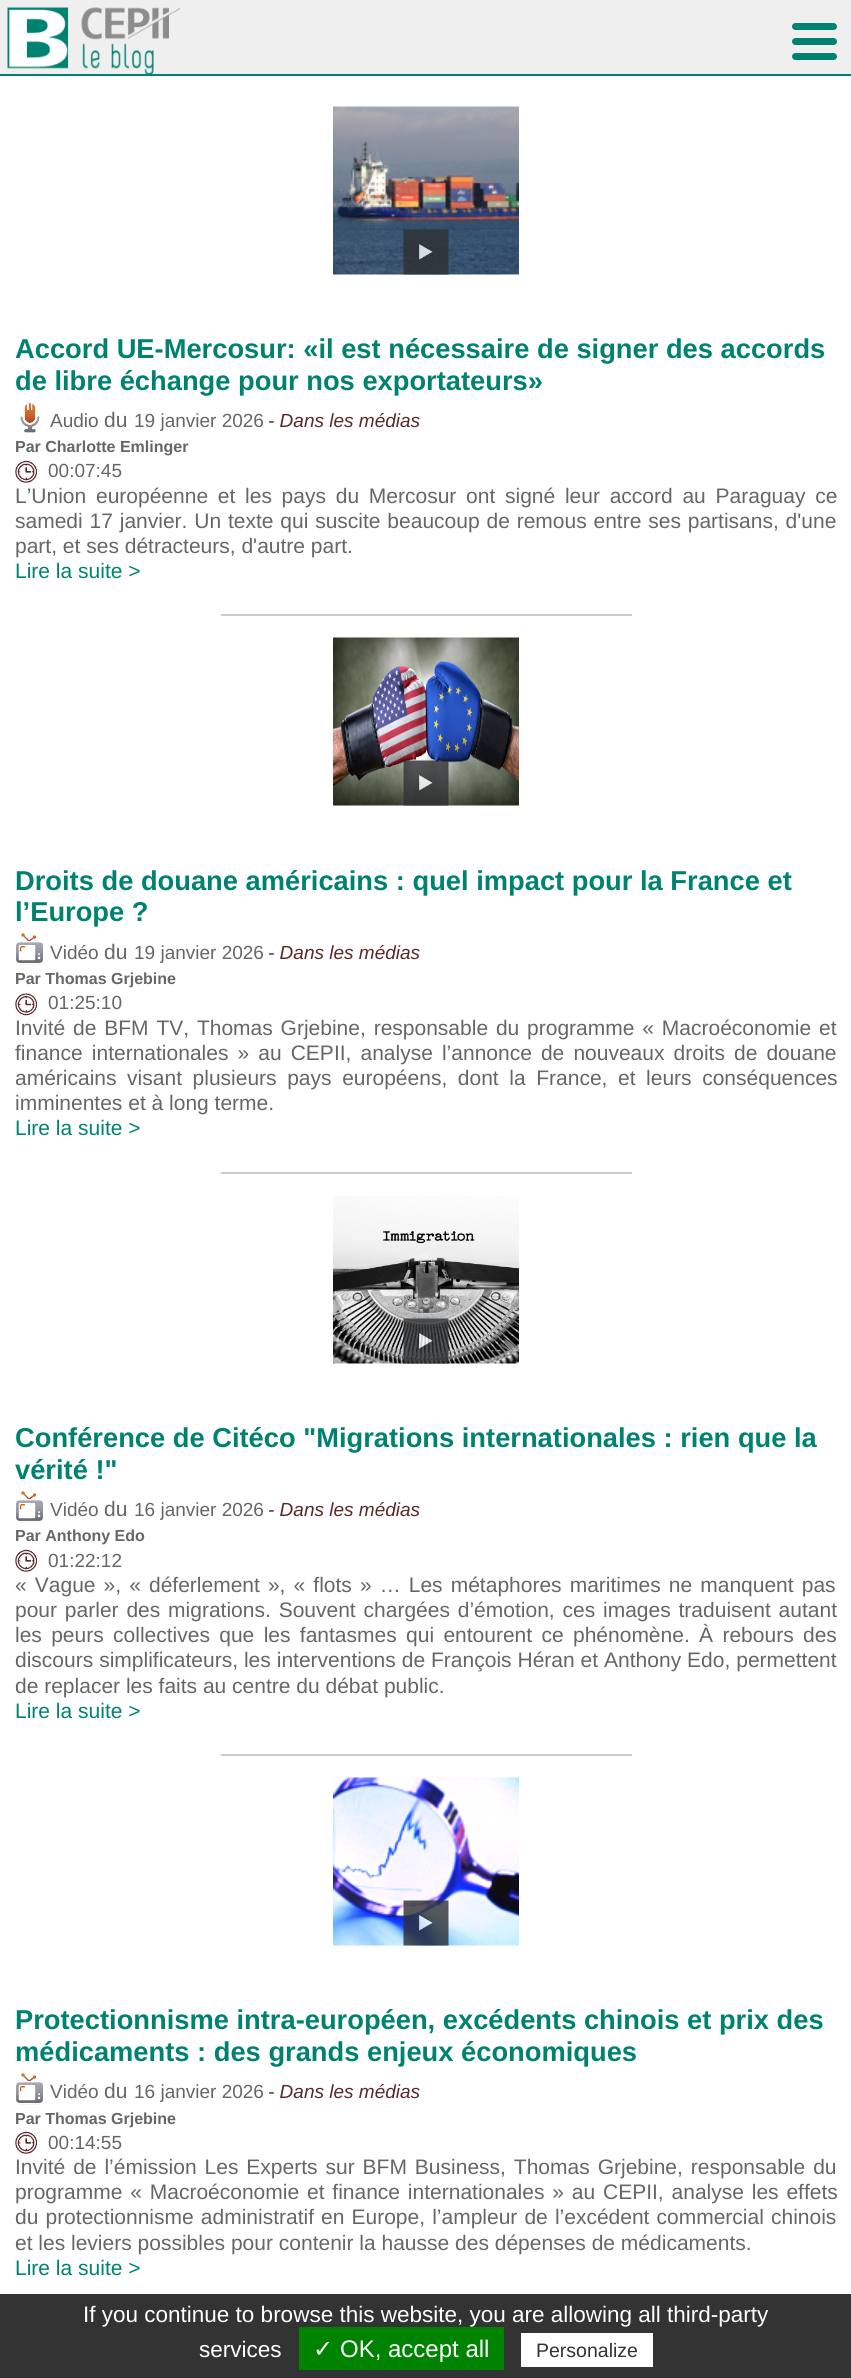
#include <cairo.h>
#include <math.h>
#include <stddef.h>

static cairo_t *c;
static void C(unsigned color){cairo_set_source_rgb(c, (color >> 16) / 255.0, (color >> 8 & 255) / 255.0, (color & 255) / 255.0);}
static void F(const char *family, double size, int italic, int bold){cairo_select_font_face(c, family, italic ? CAIRO_FONT_SLANT_ITALIC : CAIRO_FONT_SLANT_NORMAL,bold ? CAIRO_FONT_WEIGHT_BOLD : CAIRO_FONT_WEIGHT_NORMAL);cairo_set_font_size(c, size);}
static void T(double x, double y, const char *s){cairo_move_to(c, x, y);cairo_show_text(c, s);}
static void L(double x, double y, const char *s, double letter, double word){cairo_move_to(c, x, y);while (*s) {char ch[5] = {0};int n = 0;do ch[n++] = *s++; while ((*s & 0xC0) == 0x80);cairo_show_text(c, ch);cairo_rel_move_to(c, letter + word * (*ch == ' '), 0);}}
static void R(double x, double y, double w, double h){cairo_rectangle(c, x, y, w, h);cairo_fill(c);}
static void Q(double x, double y, double w, double h, double r){cairo_new_sub_path(c);cairo_arc(c, x + w - r, y + h - r, r, 0, M_PI / 2);cairo_arc(c, x + r, y + h - r, r, M_PI / 2, M_PI);cairo_arc(c, x + r, y + r, r, M_PI, 1.5 * M_PI);cairo_arc(c, x + w - r, y + r, r, 1.5 * M_PI, 2 * M_PI);cairo_close_path(c);}
static void I(const char *path, double x, double y, double w, double h){cairo_surface_t *image = cairo_image_surface_create_from_png(path);cairo_save(c);cairo_set_source_surface(c, image, x, y);cairo_rectangle(c, x, y, w, h);cairo_fill(c);cairo_restore(c);cairo_surface_destroy(image);}
int main(void) {
cairo_surface_t *surface = cairo_image_surface_create(CAIRO_FORMAT_RGB24, 851, 2378);
c = cairo_create(surface);
cairo_font_options_t *options = cairo_font_options_create();
cairo_font_options_set_hint_metrics(options, CAIRO_HINT_METRICS_OFF);
cairo_font_options_set_hint_style(options, CAIRO_HINT_STYLE_NONE);
cairo_set_font_options(c, options);
cairo_set_miter_limit(c, 4);
C(0xffffff);
cairo_paint(c);
C(0xefefef);
R(0,0,851,74);
C(0x008271);
R(0,74,851,2);
I("1.png",7,7,173,67);
Q(792,23,45,7,3.5);
cairo_fill(c);
Q(792,38,45,7,3.5);
cairo_fill(c);
Q(792,53,45,7,3.5);
cairo_fill(c);
I("2.png",333,106,186,169);
I("3.png",403,229,46,46);
F("Liberation Sans",27.3,0,1);
T(15,358,"Accord UE-Mercosur: «il est nécessaire de signer des accords");
T(15,390,"de libre échange pour nos exportateurs»");
I("4.png",20,403,20,30);
F("Liberation Sans",19,0,0);
C(0x666666);
T(50,427,"Audio");
F("Liberation Sans",21,0,0);
T(104,427,"du");
F("Liberation Sans",19,0,0);
T(134,427,"19 janvier 2026");
F("Liberation Sans",19,1,0);
C(0x5a2829);
T(268,427,"- Dans les médias");
F("Liberation Sans",16,0,1);
C(0x666666);
T(15,452,"Par Charlotte Emlinger");
I("5.png",15,460,22,23);
F("Liberation Sans",19,0,0);
T(48,477,"00:07:45");
F("Liberation Sans",21,0,0);
L(15,503,"L’Union européenne et les pays du Mercosur ont signé leur accord au Paraguay ce",0,3.9);
L(15,528,"samedi 17 janvier. Un texte qui suscite beaucoup de remous entre ses partisans, d'une",0,1);
T(15,553,"part, et ses détracteurs, d'autre part.");
C(0x008271);
T(15,578,"Lire la suite >");
C(0xcccccc);
R(221,614,411,2);
I("6.png",333,637,186,169);
I("7.png",403,760,46,46);
F("Liberation Sans",27.3,0,1);
C(0x008271);
T(15,890,"Droits de douane américains : quel impact pour la France et");
T(15,921,"l’Europe ?");
I("8.png",16,933,27,32);
F("Liberation Sans",19,0,0);
C(0x666666);
T(50,959,"Vidéo");
F("Liberation Sans",21,0,0);
T(104,959,"du");
F("Liberation Sans",19,0,0);
T(134,959,"19 janvier 2026");
F("Liberation Sans",19,1,0);
C(0x5a2829);
T(268,959,"- Dans les médias");
F("Liberation Sans",16,0,1);
C(0x666666);
T(15,984,"Par Thomas Grjebine");
I("9.png",15,993,22,23);
F("Liberation Sans",19,0,0);
T(48,1009,"01:25:10");
F("Liberation Sans",21,0,0);
L(15,1035,"Invité de BFM TV, Thomas Grjebine, responsable du programme « Macroéconomie et",0,2);
L(15,1060,"finance internationales » au CEPII, analyse l’annonce de nouveaux droits de douane",0,3.25);
L(15,1085,"américains visant plusieurs pays européens, dont la France, et leurs conséquences",0,4.75);
T(15,1110,"imminentes et à long terme.");
C(0x008271);
T(15,1135,"Lire la suite >");
C(0xcccccc);
R(221,1172,411,2);
I("10.png",333,1196,186,168);
I("11.png",403,1318,46,46);
F("Liberation Sans",27.3,0,1);
C(0x008271);
T(15,1447,"Conférence de Citéco \"Migrations internationales : rien que la");
T(15,1479,"vérité !\"");
I("8.png",16,1491,27,32);
F("Liberation Sans",19,0,0);
C(0x666666);
T(50,1516,"Vidéo");
F("Liberation Sans",21,0,0);
T(104,1516,"du");
F("Liberation Sans",19,0,0);
T(134,1516,"16 janvier 2026");
F("Liberation Sans",19,1,0);
C(0x5a2829);
T(268,1516,"- Dans les médias");
F("Liberation Sans",16,0,1);
C(0x666666);
T(15,1541,"Par Anthony Edo");
I("5.png",15,1549,22,23);
F("Liberation Sans",19,0,0);
T(48,1567,"01:22:12");
F("Liberation Sans",21,0,0);
L(15,1592,"« Vague », « déferlement », « flots » … Les métaphores maritimes ne manquent pas",0,2.25);
L(15,1617,"pour parler des migrations. Souvent chargées d’émotion, ces images traduisent autant",0,2);
L(15,1642,"les peurs collectives que les fantasmes qui entourent ce phénomène. À rebours des",0,3.5);
L(15,1667,"discours simplificateurs, les interventions de François Héran et Anthony Edo, permettent",0,.1);
T(15,1693,"de replacer les faits au centre du débat public.");
C(0x008271);
T(15,1718,"Lire la suite >");
C(0xcccccc);
R(221,1754,411,2);
I("12.png",333,1777,186,169);
I("13.png",403,1900,46,46);
F("Liberation Sans",27.3,0,1);
C(0x008271);
T(15,2029,"Protectionnisme intra-européen, excédents chinois et prix des");
T(15,2061,"médicaments : des grands enjeux économiques");
I("8.png",16,2073,27,32);
F("Liberation Sans",19,0,0);
C(0x666666);
T(50,2098,"Vidéo");
F("Liberation Sans",21,0,0);
T(104,2098,"du");
F("Liberation Sans",19,0,0);
T(134,2098,"16 janvier 2026");
F("Liberation Sans",19,1,0);
C(0x5a2829);
T(268,2098,"- Dans les médias");
F("Liberation Sans",16,0,1);
C(0x666666);
T(15,2124,"Par Thomas Grjebine");
I("5.png",15,2131,22,23);
F("Liberation Sans",19,0,0);
T(48,2149,"00:14:55");
F("Liberation Sans",21,0,0);
L(15,2174,"Invité de l’émission Les Experts sur BFM Business, Thomas Grjebine, responsable du",0,2.1);
L(15,2199,"programme « Macroéconomie et finance internationales » au CEPII, analyse les effets",0,2);
L(15,2224,"du protectionnisme administratif en Europe, l’ampleur de l’excédent commercial chinois",0,1.25);
T(15,2250,"et les leviers possibles pour contenir la hausse des dépenses de médicaments.");
C(0x008271);
T(15,2275,"Lire la suite >");
C(0x333333);
R(0,2294,851,84);
F("Liberation Sans",22.5,0,0);
C(0xffffff);
T(83,2322,"If you continue to browse this website, you are allowing all third-party");
T(199,2357,"services");
C(0x008300);
R(299,2327,205,43);
F("DejaVu Sans",24,0,0);
C(0xffffff);
T(313,2357,"✓");
F("Liberation Sans",24,0,0);
T(340,2357,"OK, accept all");
R(521,2333,132,34);
F("Liberation Sans",19.5,0,0);
C(0x333333);
T(536,2357,"Personalize");
cairo_surface_write_to_png(surface, "o.png");
cairo_font_options_destroy(options);
cairo_destroy(c);
cairo_surface_destroy(surface);
return 0;
}
